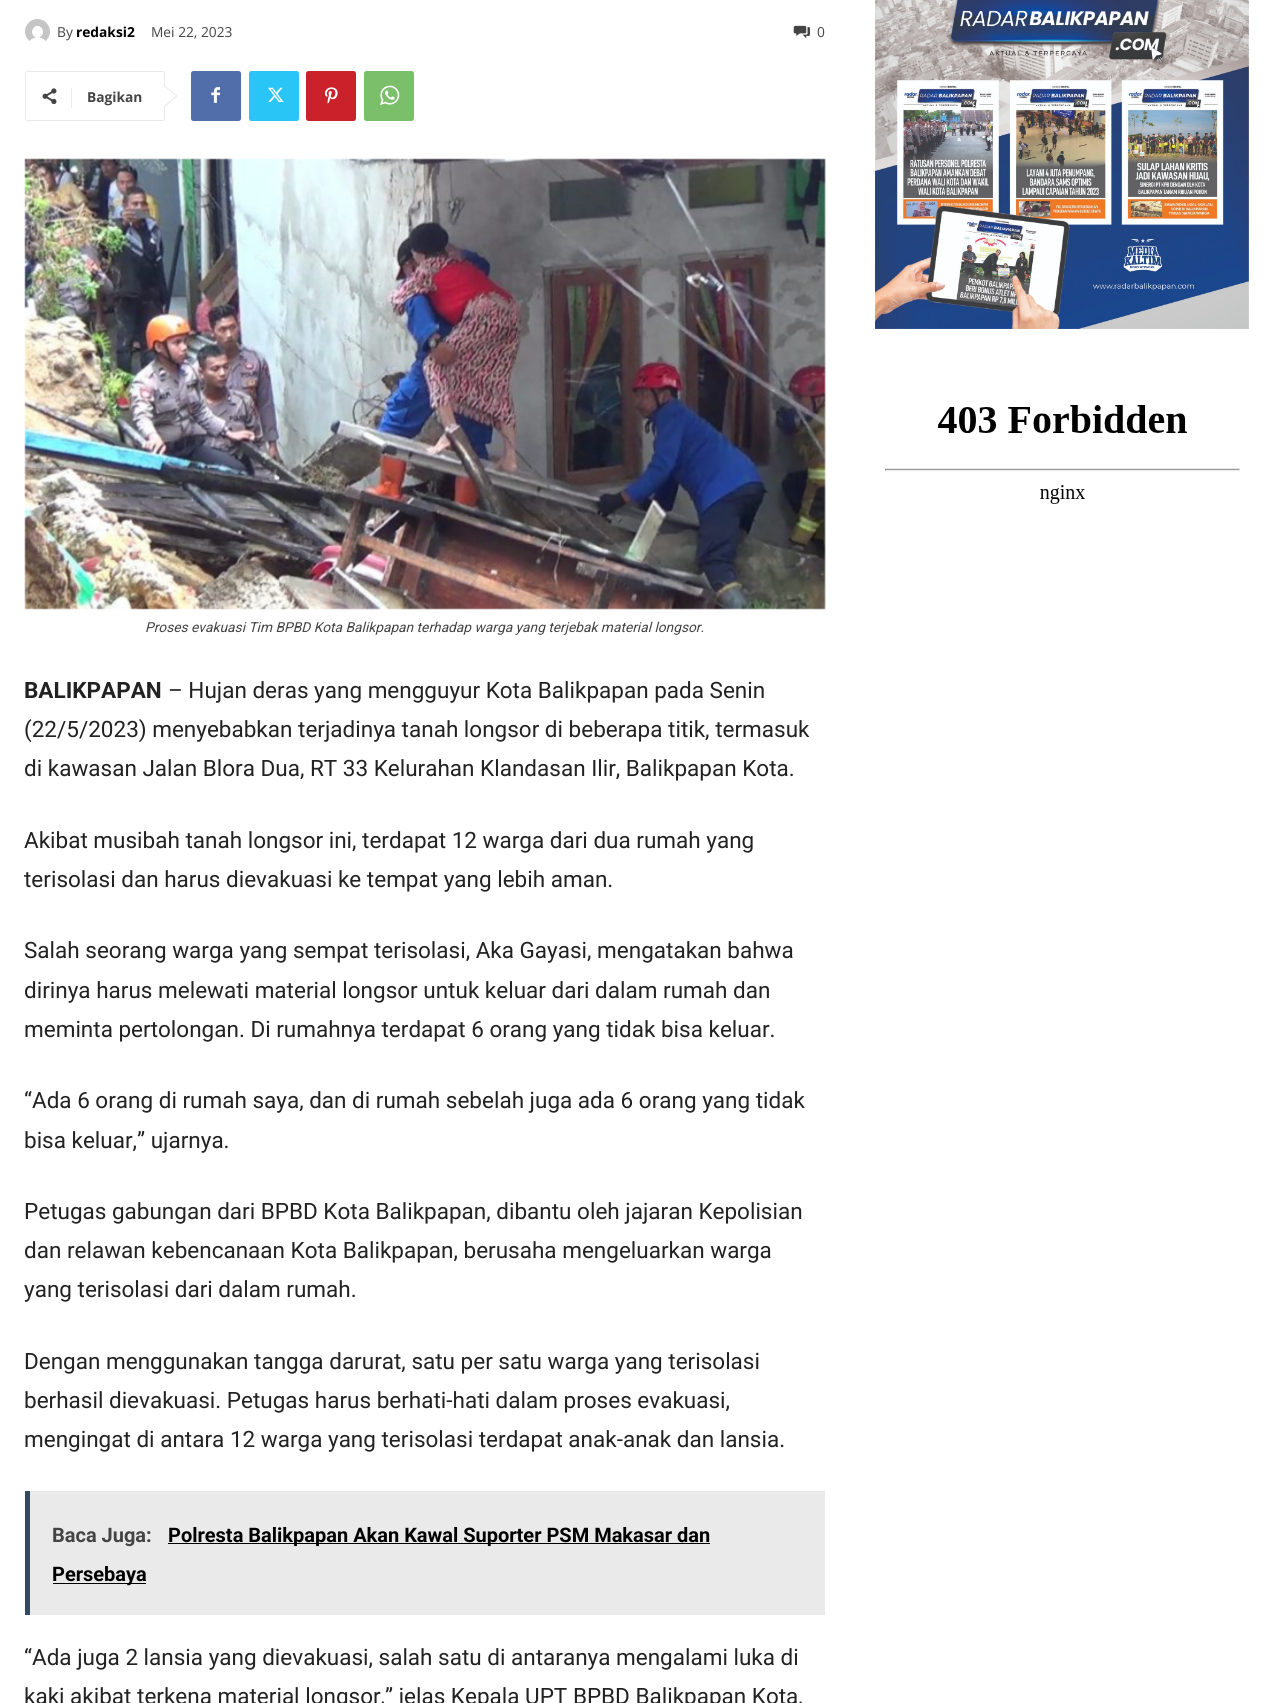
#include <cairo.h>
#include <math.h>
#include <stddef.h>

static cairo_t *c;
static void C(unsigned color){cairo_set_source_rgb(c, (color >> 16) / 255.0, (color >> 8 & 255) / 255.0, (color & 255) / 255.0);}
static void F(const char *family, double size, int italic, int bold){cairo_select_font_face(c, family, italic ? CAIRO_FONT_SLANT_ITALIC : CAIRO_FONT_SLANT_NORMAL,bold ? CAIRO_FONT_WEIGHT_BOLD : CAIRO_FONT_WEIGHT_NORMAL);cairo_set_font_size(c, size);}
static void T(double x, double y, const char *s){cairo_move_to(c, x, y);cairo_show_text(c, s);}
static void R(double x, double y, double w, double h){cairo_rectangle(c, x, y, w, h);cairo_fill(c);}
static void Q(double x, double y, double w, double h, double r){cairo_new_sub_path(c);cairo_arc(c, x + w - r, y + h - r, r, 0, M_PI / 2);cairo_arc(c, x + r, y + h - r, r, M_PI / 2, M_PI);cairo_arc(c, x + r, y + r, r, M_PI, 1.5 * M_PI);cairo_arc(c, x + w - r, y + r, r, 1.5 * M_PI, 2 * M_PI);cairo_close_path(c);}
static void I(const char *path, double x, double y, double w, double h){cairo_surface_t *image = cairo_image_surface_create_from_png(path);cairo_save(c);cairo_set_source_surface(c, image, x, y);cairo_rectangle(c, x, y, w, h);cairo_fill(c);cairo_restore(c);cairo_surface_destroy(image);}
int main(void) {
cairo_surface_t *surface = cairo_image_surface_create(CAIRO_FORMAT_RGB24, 1273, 1703);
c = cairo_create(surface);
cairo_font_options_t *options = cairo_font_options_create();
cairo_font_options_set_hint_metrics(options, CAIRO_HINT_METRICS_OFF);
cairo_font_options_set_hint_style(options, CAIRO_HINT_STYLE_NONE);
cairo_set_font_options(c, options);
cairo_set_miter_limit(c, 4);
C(0xffffff);
cairo_paint(c);
I("1.png",25,19,25,22);
F("Open Sans",13.75,0,0);
C(0x444444);
T(57,37,"By");
F("Open Sans",13.75,0,1);
C(0x000000);
T(76,37,"redaksi2");
F("Open Sans",13.75,0,0);
C(0x444444);
T(151,37,"Mei 22, 2023");
I("2.png",793,25,17,14);
T(817,37,"0");
Q(25.5,71.5,139,49,2);
C(0xe9e9e9);
cairo_set_line_width(c,1);
cairo_stroke(c);
cairo_new_path(c);
cairo_move_to(c,164,107.5);
cairo_line_to(c,164,85);
cairo_line_to(c,177.5,96);
cairo_close_path(c);
cairo_fill(c);
I("3.png",42,88,15,17);
C(0xebebeb);
R(71,88,1,20);
F("Open Sans",13.75,0,1);
C(0x444444);
T(87,102,"Bagikan");
C(0xffffff);
cairo_new_path(c);
cairo_move_to(c,164,106);
cairo_line_to(c,164,86);
cairo_line_to(c,176,96);
cairo_close_path(c);
cairo_fill(c);
C(0x516eab);
Q(191,71,50,50,2.5);
cairo_fill(c);
I("4.png",211,87,9,16);
C(0x29c5f6);
Q(249,71,50,50,2.5);
cairo_fill(c);
I("5.png",268,87,16,15);
C(0xca212a);
Q(306,71,50,50,2.5);
cairo_fill(c);
I("6.png",325,87,13,17);
C(0x7bbf6a);
Q(364,71,50,50,2.5);
cairo_fill(c);
I("7.png",380,85,20,20);
I("8.png",24,158,802,452);
F("Roboto",13.75,1,0);
C(0x444444);
T(145,632,"Proses evakuasi Tim BPBD Kota Balikpapan terhadap warga yang terjebak material longsor.");
F("Roboto",22.5,0,1);
C(0x222222);
T(24,698,"BALIKPAPAN");
F("Roboto",22.5,0,0);
T(168,698,"– Hujan deras yang mengguyur Kota Balikpapan pada Senin");
T(24,737,"(22/5/2023) menyebabkan terjadinya tanah longsor di beberapa titik, termasuk");
T(24,776,"di kawasan Jalan Blora Dua, RT 33 Kelurahan Klandasan Ilir, Balikpapan Kota.");
T(24,848,"Akibat musibah tanah longsor ini, terdapat 12 warga dari dua rumah yang");
T(24,887,"terisolasi dan harus dievakuasi ke tempat yang lebih aman.");
T(24,958,"Salah seorang warga yang sempat terisolasi, Aka Gayasi, mengatakan bahwa");
T(24,998,"dirinya harus melewati material longsor untuk keluar dari dalam rumah dan");
T(24,1037,"meminta pertolongan. Di rumahnya terdapat 6 orang yang tidak bisa keluar.");
T(24,1108,"“Ada 6 orang di rumah saya, dan di rumah sebelah juga ada 6 orang yang tidak");
T(24,1148,"bisa keluar,” ujarnya.");
T(24,1219,"Petugas gabungan dari BPBD Kota Balikpapan, dibantu oleh jajaran Kepolisian");
T(24,1258,"dan relawan kebencanaan Kota Balikpapan, berusaha mengeluarkan warga");
T(24,1297,"yang terisolasi dari dalam rumah.");
T(24,1369,"Dengan menggunakan tangga darurat, satu per satu warga yang terisolasi");
T(24,1408,"berhasil dievakuasi. Petugas harus berhati-hati dalam proses evakuasi,");
T(24,1447,"mengingat di antara 12 warga yang terisolasi terdapat anak-anak dan lansia.");
C(0xeaeaea);
R(30,1491,795,124);
C(0x34495e);
R(25,1491,5,124);
F("Roboto",20,0,1);
C(0x444444);
T(52,1542,"Baca Juga:");
C(0x000000);
R(168,1543,542,1);
T(168,1542,"Polresta Balikpapan Akan Kawal Suporter PSM Makasar dan");
R(53,1583,93,1);
T(52,1581,"Persebaya");
F("Roboto",22.5,0,0);
C(0x222222);
T(24,1665,"“Ada juga 2 lansia yang dievakuasi, salah satu di antaranya mengalami luka di");
T(24,1704,"kaki akibat terkena material longsor,” jelas Kepala UPT BPBD Balikpapan Kota,");
I("9.png",875,0,374,329);
I("10.png",885,405,355,99);
cairo_surface_write_to_png(surface, "o.png");
cairo_font_options_destroy(options);
cairo_destroy(c);
cairo_surface_destroy(surface);
return 0;
}
